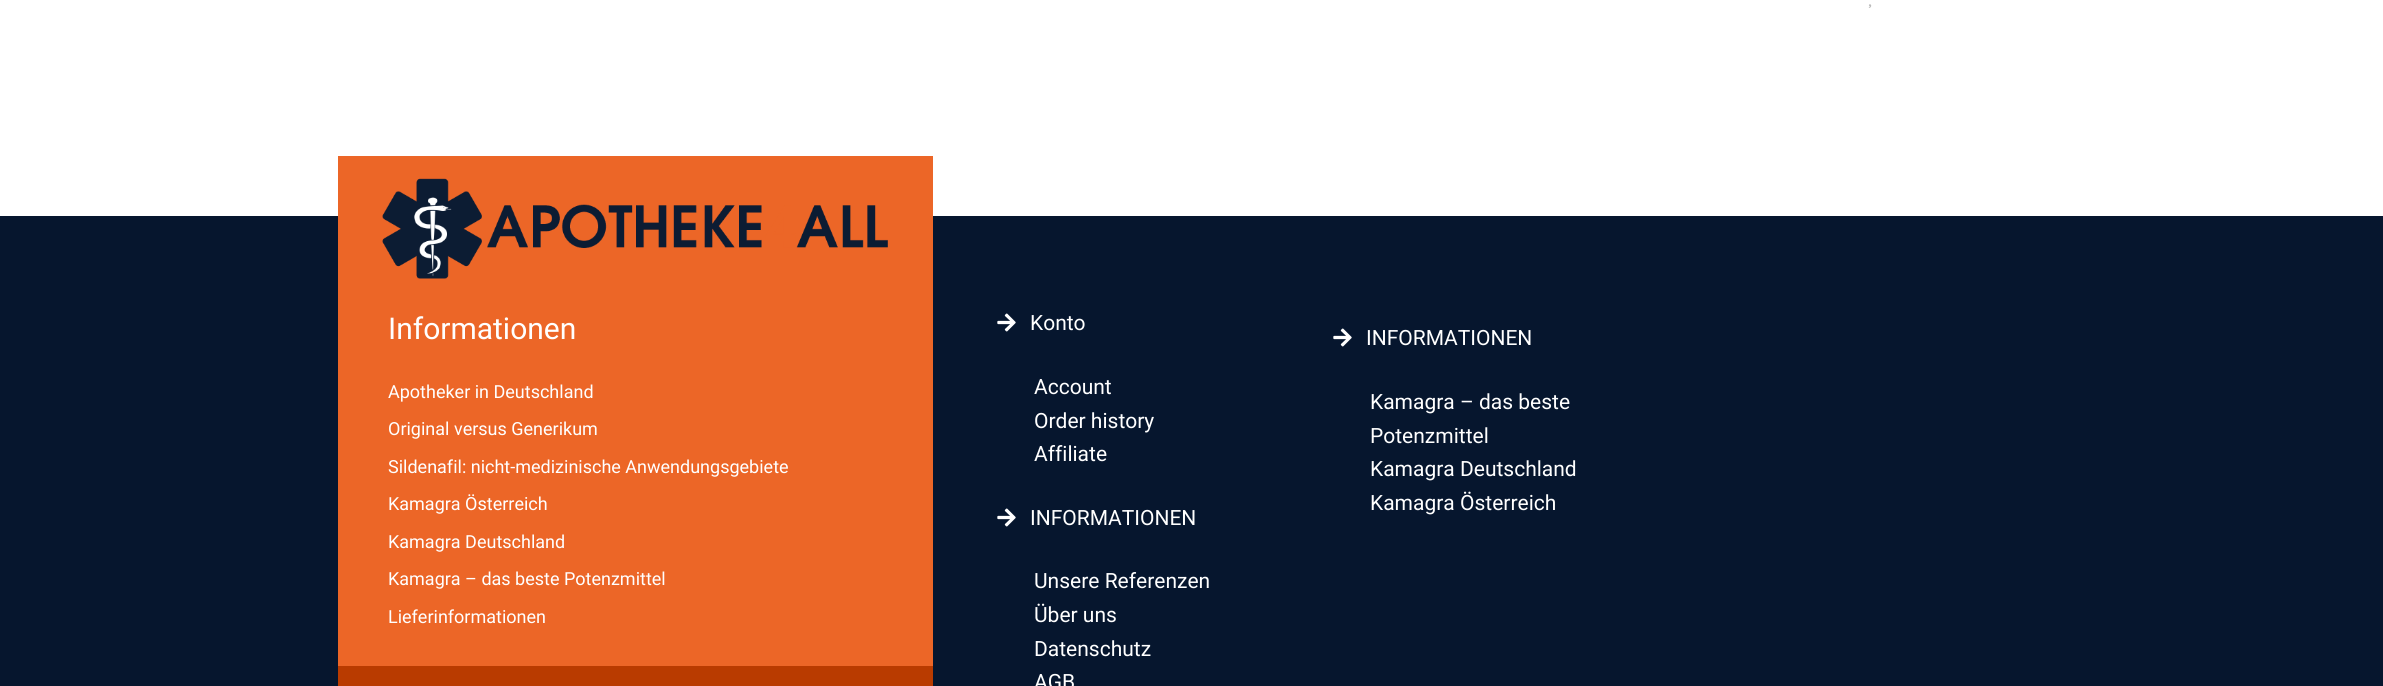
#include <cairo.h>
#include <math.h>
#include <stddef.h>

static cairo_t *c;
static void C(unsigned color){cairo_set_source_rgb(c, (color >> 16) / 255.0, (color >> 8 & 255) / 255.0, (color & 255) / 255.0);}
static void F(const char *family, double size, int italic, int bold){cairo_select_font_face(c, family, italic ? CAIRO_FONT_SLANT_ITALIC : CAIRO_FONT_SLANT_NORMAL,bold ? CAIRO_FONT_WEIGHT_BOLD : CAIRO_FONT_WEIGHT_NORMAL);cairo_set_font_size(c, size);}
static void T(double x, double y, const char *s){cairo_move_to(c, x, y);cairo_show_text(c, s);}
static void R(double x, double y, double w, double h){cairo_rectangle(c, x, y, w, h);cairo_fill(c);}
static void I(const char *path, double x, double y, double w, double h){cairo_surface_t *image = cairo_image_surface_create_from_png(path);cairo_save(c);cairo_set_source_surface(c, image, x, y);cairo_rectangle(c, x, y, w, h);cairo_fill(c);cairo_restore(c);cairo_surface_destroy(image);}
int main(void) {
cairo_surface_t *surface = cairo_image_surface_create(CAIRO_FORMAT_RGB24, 2383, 686);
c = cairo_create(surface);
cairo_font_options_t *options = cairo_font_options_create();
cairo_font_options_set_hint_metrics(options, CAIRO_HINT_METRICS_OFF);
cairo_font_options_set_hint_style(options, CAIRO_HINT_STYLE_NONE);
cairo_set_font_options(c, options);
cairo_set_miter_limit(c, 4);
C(0xffffff);
cairo_paint(c);
F("Karla",18,0,0);
C(0xbbbbbb);
T(1868,6,",");
C(0x06162e);
R(0,216,2383,470);
C(0xec6627);
R(338,156,595,510);
I("1.png",382,178,506,101);
F("Roboto",30,0,0);
C(0xffffff);
T(388,339,"Informationen");
F("Roboto",18,0,0);
T(388,398,"Apotheker in Deutschland");
T(388,435,"Original versus Generikum");
T(388,473,"Sildenafil: nicht-medizinische Anwendungsgebiete");
T(388,510,"Kamagra Österreich");
T(388,548,"Kamagra Deutschland");
T(388,585,"Kamagra – das beste Potenzmittel");
T(388,623,"Lieferinformationen");
C(0xb93b00);
R(338,666,595,20);
I("2.png",997,313,19,19);
F("Roboto",21,0,0);
C(0xffffff);
T(1030,330,"Konto");
T(1034,394,"Account");
T(1034,428,"Order history");
T(1034,461,"Affiliate");
I("2.png",997,508,19,19);
T(1030,525,"INFORMATIONEN");
T(1034,588,"Unsere Referenzen");
T(1034,622,"Über uns");
T(1034,656,"Datenschutz");
T(1034,689,"AGB");
I("2.png",1333,328,19,19);
T(1366,345,"INFORMATIONEN");
T(1370,409,"Kamagra – das beste");
T(1370,443,"Potenzmittel");
T(1370,476,"Kamagra Deutschland");
T(1370,510,"Kamagra Österreich");
cairo_surface_write_to_png(surface, "o.png");
cairo_font_options_destroy(options);
cairo_destroy(c);
cairo_surface_destroy(surface);
return 0;
}
